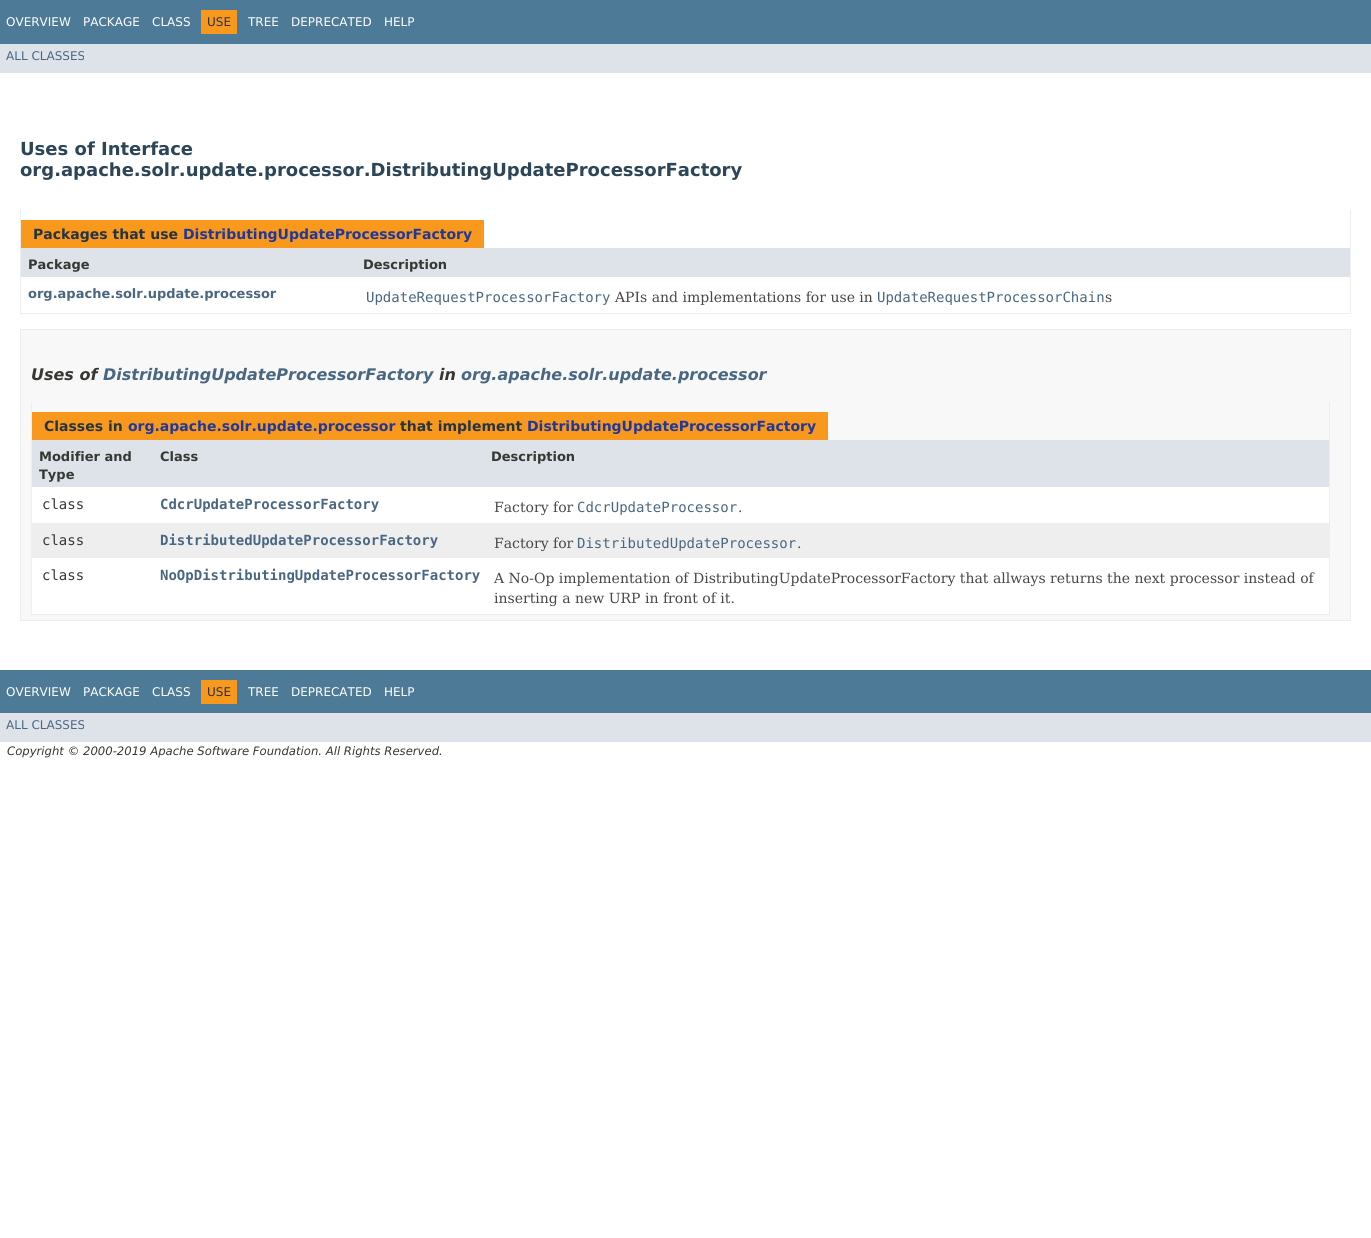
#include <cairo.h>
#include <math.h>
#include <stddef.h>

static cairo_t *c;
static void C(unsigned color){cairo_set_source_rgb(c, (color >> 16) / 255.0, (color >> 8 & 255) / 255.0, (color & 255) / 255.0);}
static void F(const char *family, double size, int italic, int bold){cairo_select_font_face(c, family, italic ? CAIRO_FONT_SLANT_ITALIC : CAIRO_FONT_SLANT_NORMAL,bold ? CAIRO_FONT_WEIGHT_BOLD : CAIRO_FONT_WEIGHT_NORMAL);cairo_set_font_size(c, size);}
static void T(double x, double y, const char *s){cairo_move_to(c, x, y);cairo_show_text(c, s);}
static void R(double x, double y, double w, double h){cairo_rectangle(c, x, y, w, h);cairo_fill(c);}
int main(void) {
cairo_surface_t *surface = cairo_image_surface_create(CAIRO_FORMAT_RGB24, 1371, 1238);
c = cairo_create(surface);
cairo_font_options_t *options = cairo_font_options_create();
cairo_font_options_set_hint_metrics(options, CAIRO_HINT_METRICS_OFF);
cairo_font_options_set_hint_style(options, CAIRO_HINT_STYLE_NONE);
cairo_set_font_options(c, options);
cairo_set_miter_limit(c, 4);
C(0xffffff);
cairo_paint(c);
C(0x4d7a97);
R(0,0,1371,44);
F("DejaVu Sans",12,0,0);
C(0xffffff);
T(6,26,"OVERVIEW");
T(83,26,"PACKAGE");
T(152,26,"CLASS");
C(0xf8981d);
R(201,10,36,24);
C(0x253441);
T(207,26,"USE");
C(0xffffff);
T(248,26,"TREE");
T(291,26,"DEPRECATED");
T(384,26,"HELP");
C(0xdee3e9);
R(0,44,1371,29);
C(0x4a6782);
T(6,60,"ALL CLASSES");
F("DejaVu Sans",18,0,1);
C(0x2c4557);
T(20,155,"Uses of Interface");
T(20,176,"org.apache.solr.update.processor.DistributingUpdateProcessorFactory");
C(0xeeeeee);
R(1350,210,1,104);
R(20,313,1331,1);
R(20,210,1,104);
C(0xf8981d);
R(21,220,463,28);
F("DejaVu Sans",14,0,1);
C(0x253441);
T(33,239,"Packages that use");
C(0x1f389c);
T(183,239,"DistributingUpdateProcessorFactory");
C(0xdee3e9);
R(21,248,1329,29);
F("DejaVu Sans",13,0,1);
C(0x353833);
T(28,269,"Package");
T(363,269,"Description");
C(0x4a6782);
T(28,298,"org.apache.solr.update.processor");
F("DejaVu Sans Mono",14,0,0);
T(366,302,"UpdateRequestProcessorFactory");
F("DejaVu Serif",14,0,0);
C(0x474747);
T(615,302,"APIs and implementations for use in");
F("DejaVu Sans Mono",14,0,0);
C(0x4a6782);
T(877,302,"UpdateRequestProcessorChain");
F("DejaVu Serif",14,0,0);
C(0x474747);
T(1105,302,"s");
C(0xf8f8f8);
cairo_rectangle(c,20.5,329.5,1330,291);
cairo_fill_preserve(c);
C(0xededed);
cairo_set_line_width(c,1);
cairo_stroke(c);
F("DejaVu Sans",16,1,1);
C(0x353833);
T(31,380,"Uses of");
C(0x4a6782);
T(103,380,"DistributingUpdateProcessorFactory");
C(0x353833);
T(439,380,"in");
C(0x4a6782);
T(461,380,"org.apache.solr.update.processor");
C(0xeeeeee);
R(1329,402,1,213);
R(31,614,1299,1);
R(31,402,1,213);
C(0xf8981d);
R(32,412,796,28);
F("DejaVu Sans",14,0,1);
C(0x253441);
T(44,431,"Classes in");
C(0x1f389c);
T(128,431,"org.apache.solr.update.processor");
C(0x253441);
T(400,431,"that implement");
C(0x1f389c);
T(527,431,"DistributingUpdateProcessorFactory");
C(0xdee3e9);
R(32,440,1297,47);
F("DejaVu Sans",13,0,1);
C(0x353833);
T(39,461,"Modifier and");
T(39,479,"Type");
T(160,461,"Class");
T(491,461,"Description");
C(0xffffff);
R(32,487,1297,36);
F("DejaVu Sans Mono",14,0,0);
C(0x353833);
T(42,509,"class");
F("DejaVu Sans Mono",14,0,1);
C(0x4a6782);
T(160,509,"CdcrUpdateProcessorFactory");
F("DejaVu Serif",14,0,0);
C(0x474747);
T(494,512,"Factory for");
F("DejaVu Sans Mono",14,0,0);
C(0x4a6782);
T(577,512,"CdcrUpdateProcessor");
F("DejaVu Serif",14,0,0);
C(0x474747);
T(738,512,".");
C(0xeeeeef);
R(32,523,1297,35);
F("DejaVu Sans Mono",14,0,0);
C(0x353833);
T(42,545,"class");
F("DejaVu Sans Mono",14,0,1);
C(0x4a6782);
T(160,545,"DistributedUpdateProcessorFactory");
F("DejaVu Serif",14,0,0);
C(0x474747);
T(494,548,"Factory for");
F("DejaVu Sans Mono",14,0,0);
C(0x4a6782);
T(577,548,"DistributedUpdateProcessor");
F("DejaVu Serif",14,0,0);
C(0x474747);
T(797,548,".");
C(0xffffff);
R(32,558,1297,56);
F("DejaVu Sans Mono",14,0,0);
C(0x353833);
T(42,580,"class");
F("DejaVu Sans Mono",14,0,1);
C(0x4a6782);
T(160,580,"NoOpDistributingUpdateProcessorFactory");
F("DejaVu Serif",14,0,0);
C(0x474747);
T(494,583,"A No-Op implementation of DistributingUpdateProcessorFactory that allways returns the next processor instead of");
T(494,603,"inserting a new URP in front of it.");
C(0x4d7a97);
R(0,670,1371,43);
F("DejaVu Sans",12,0,0);
C(0xffffff);
T(6,696,"OVERVIEW");
T(83,696,"PACKAGE");
T(152,696,"CLASS");
C(0xf8981d);
R(201,680,36,24);
C(0x253441);
T(207,696,"USE");
C(0xffffff);
T(248,696,"TREE");
T(291,696,"DEPRECATED");
T(384,696,"HELP");
C(0xdee3e9);
R(0,713,1371,29);
C(0x4a6782);
T(6,729,"ALL CLASSES");
F("DejaVu Sans",11.65,1,0);
C(0x353833);
T(7,755,"Copyright © 2000-2019 Apache Software Foundation. All Rights Reserved.");
cairo_surface_write_to_png(surface, "o.png");
cairo_font_options_destroy(options);
cairo_destroy(c);
cairo_surface_destroy(surface);
return 0;
}
